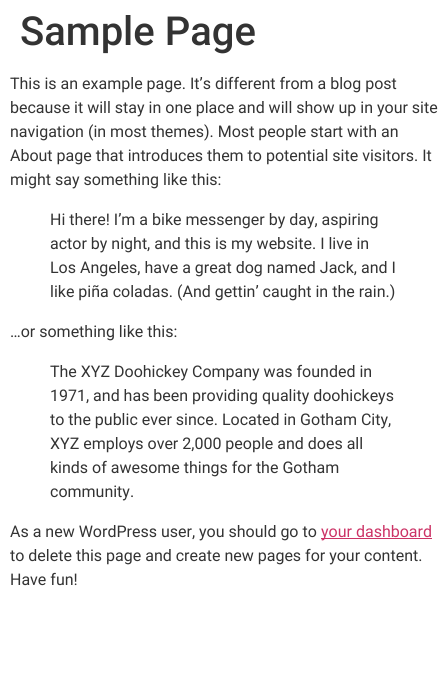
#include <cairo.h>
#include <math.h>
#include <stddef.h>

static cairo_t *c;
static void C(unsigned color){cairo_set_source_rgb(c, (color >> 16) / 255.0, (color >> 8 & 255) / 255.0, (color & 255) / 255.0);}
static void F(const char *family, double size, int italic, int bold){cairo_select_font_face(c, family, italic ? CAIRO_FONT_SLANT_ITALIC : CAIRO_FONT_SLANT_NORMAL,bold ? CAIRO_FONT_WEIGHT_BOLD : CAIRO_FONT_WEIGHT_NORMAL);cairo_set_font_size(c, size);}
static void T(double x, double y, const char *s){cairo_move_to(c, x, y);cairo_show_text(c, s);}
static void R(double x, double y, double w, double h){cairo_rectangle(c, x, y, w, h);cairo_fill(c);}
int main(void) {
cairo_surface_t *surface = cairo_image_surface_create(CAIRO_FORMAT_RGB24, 448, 685);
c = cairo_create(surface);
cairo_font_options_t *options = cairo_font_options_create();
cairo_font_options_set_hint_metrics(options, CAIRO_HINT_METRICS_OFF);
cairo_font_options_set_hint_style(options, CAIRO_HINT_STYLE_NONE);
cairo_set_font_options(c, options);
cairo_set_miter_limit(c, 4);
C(0xffffff);
cairo_paint(c);
F("Roboto Medium",40,0,0);
C(0x333333);
T(20,45,"Sample Page");
F("Roboto",16,0,0);
T(10,89,"This is an example page. It’s different from a blog post");
T(10,113,"because it will stay in one place and will show up in your site");
T(10,137,"navigation (in most themes). Most people start with an");
T(10,161,"About page that introduces them to potential site visitors. It");
T(10,185,"might say something like this:");
T(50,225,"Hi there! I’m a bike messenger by day, aspiring");
T(50,249,"actor by night, and this is my website. I live in");
T(50,273,"Los Angeles, have a great dog named Jack, and I");
T(50,297,"like piña coladas. (And gettin’ caught in the rain.)");
T(10,337,"…or something like this:");
T(50,377,"The XYZ Doohickey Company was founded in");
T(50,401,"1971, and has been providing quality doohickeys");
T(50,425,"to the public ever since. Located in Gotham City,");
T(50,449,"XYZ employs over 2,000 people and does all");
T(50,473,"kinds of awesome things for the Gotham");
T(50,497,"community.");
T(10,537,"As a new WordPress user, you should go to");
C(0xcc3366);
R(321,538,111,1);
T(321,537,"your dashboard");
C(0x333333);
T(10,561,"to delete this page and create new pages for your content.");
T(10,585,"Have fun!");
cairo_surface_write_to_png(surface, "o.png");
cairo_font_options_destroy(options);
cairo_destroy(c);
cairo_surface_destroy(surface);
return 0;
}
